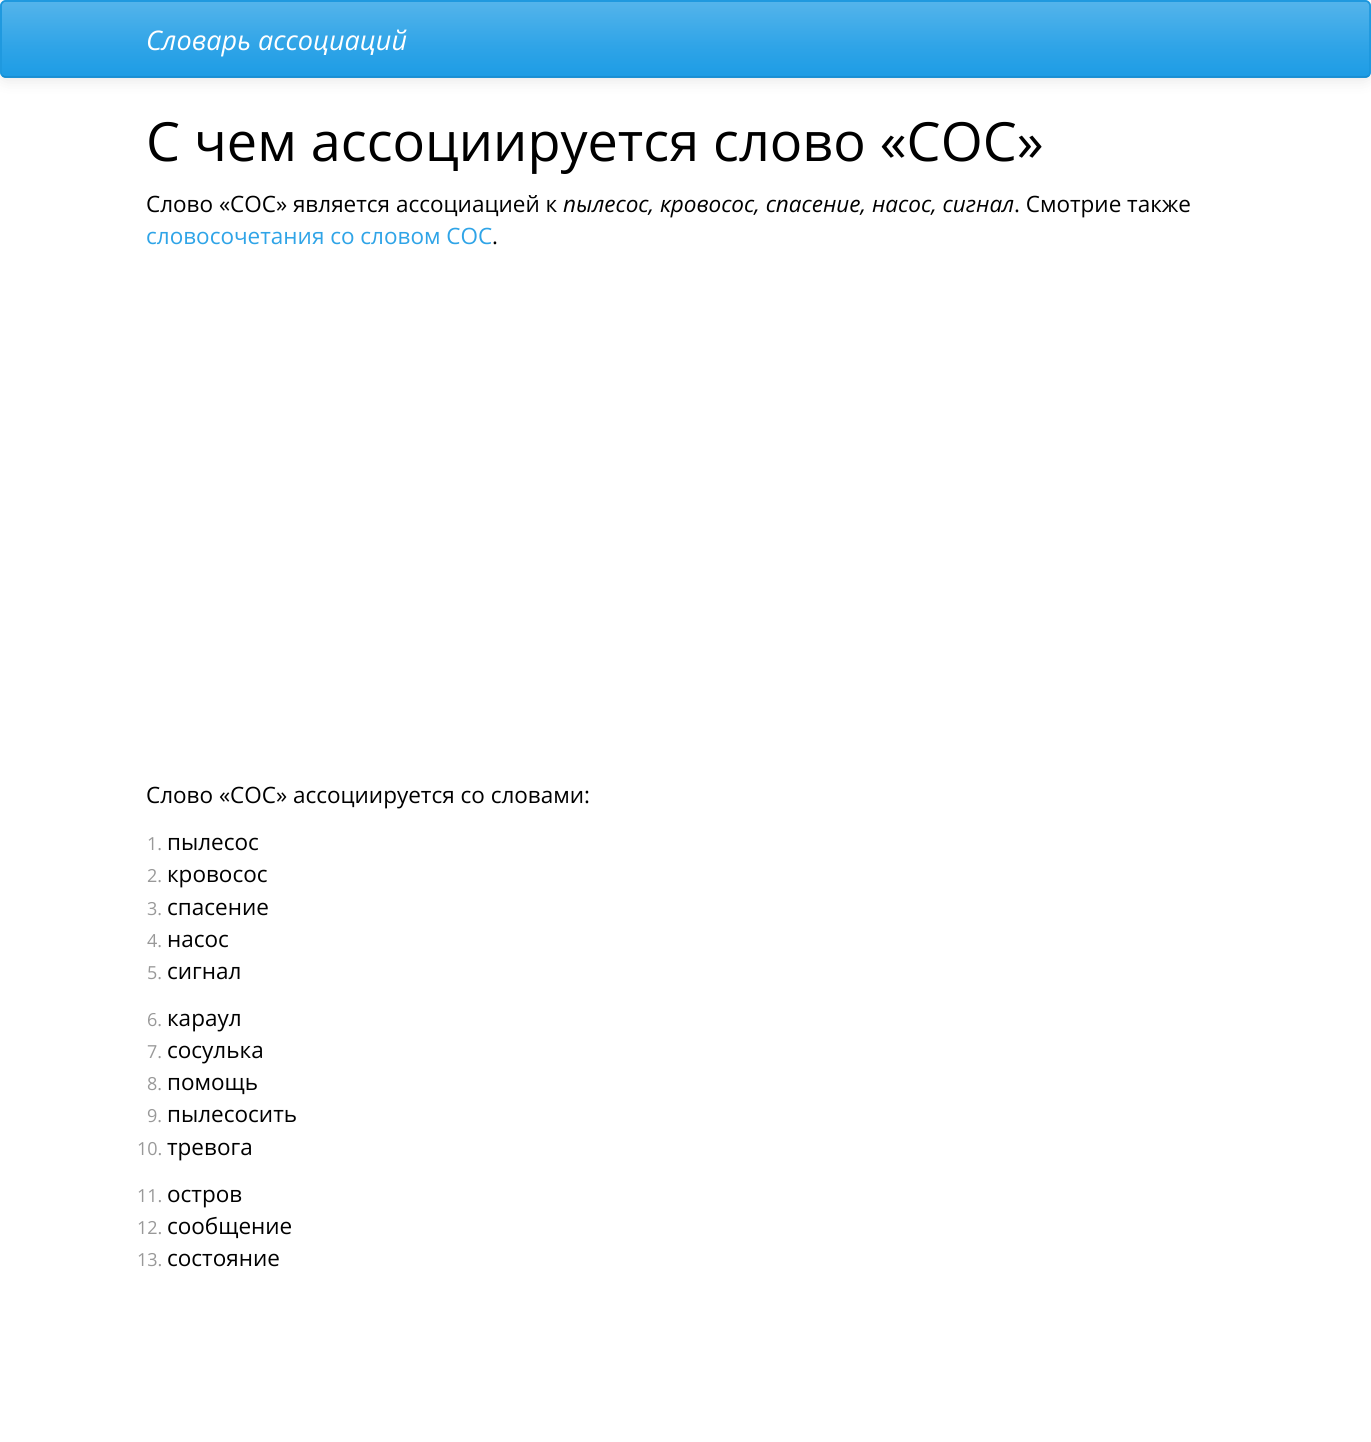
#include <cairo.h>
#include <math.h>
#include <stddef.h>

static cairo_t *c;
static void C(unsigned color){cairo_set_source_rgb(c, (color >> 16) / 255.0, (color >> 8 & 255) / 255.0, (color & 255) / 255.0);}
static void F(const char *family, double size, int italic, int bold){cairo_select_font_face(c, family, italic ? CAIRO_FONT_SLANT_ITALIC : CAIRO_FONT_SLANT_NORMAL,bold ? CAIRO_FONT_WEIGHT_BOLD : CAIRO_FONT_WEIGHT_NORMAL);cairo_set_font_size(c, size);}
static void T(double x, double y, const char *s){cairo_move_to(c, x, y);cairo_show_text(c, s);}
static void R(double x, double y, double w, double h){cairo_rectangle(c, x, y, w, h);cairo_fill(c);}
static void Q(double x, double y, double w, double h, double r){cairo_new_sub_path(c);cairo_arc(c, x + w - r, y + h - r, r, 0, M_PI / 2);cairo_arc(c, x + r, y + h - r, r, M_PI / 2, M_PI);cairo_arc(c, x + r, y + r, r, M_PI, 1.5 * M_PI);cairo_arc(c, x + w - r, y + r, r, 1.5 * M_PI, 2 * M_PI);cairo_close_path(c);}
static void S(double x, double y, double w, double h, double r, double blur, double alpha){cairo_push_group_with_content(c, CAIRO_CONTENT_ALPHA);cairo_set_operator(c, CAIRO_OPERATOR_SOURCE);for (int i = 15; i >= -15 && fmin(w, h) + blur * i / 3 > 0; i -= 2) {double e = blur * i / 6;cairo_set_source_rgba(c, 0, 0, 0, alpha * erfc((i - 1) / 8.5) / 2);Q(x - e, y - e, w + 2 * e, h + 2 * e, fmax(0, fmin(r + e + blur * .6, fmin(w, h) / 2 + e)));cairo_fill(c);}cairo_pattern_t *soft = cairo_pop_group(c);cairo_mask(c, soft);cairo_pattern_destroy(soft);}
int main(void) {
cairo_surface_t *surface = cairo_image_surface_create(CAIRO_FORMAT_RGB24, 1371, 1442);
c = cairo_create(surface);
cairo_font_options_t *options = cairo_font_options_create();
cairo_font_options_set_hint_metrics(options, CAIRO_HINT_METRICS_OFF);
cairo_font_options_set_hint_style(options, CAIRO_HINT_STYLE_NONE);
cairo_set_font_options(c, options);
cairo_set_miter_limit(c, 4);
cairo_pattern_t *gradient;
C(0xffffff);
cairo_paint(c);
C(0x000000);
S(0,2,1371,78,6,7.5,.1);
C(0x2fa4e7);
Q(0,0,1371,78,6);
cairo_fill(c);
cairo_save(c);
Q(0,0,1371,78,6);
cairo_clip(c);
gradient = cairo_pattern_create_linear(686,1.5,686,77);
cairo_pattern_add_color_stop_rgba(gradient,0,0.329,0.706,0.922,1);
cairo_pattern_add_color_stop_rgba(gradient,.6,0.184,0.643,0.906,1);
cairo_pattern_add_color_stop_rgba(gradient,1,0.114,0.612,0.898,1);
cairo_set_source(c,gradient);
cairo_pattern_destroy(gradient);
R(2,2,1368,75);
cairo_restore(c);
cairo_new_path(c);
cairo_move_to(c,1368.5,75.5);
cairo_curve_to(c,1367.5,76.5,1366.5,77,1365,77);
cairo_line_to(c,6,77);
cairo_curve_to(c,4.5,77,3.5,76.5,2.5,75.5);
C(0x178acc);
cairo_set_line_width(c,1.5);
cairo_stroke(c);
cairo_new_path(c);
cairo_move_to(c,2.5,75.5);
cairo_curve_to(c,1.5,74.5,1,73.5,1,72);
cairo_line_to(c,1,6);
cairo_curve_to(c,1,4.5,1.5,3.5,2.5,2.5);
cairo_curve_to(c,3.5,1.5,4.5,1,6,1);
cairo_line_to(c,1365,1);
cairo_curve_to(c,1366.5,1,1367.5,1.5,1368.5,2.5);
cairo_curve_to(c,1369.5,3.5,1370,4.5,1370,6);
cairo_line_to(c,1370,72);
cairo_curve_to(c,1370,73.5,1369.5,74.5,1368.5,75.5);
C(0x1995dc);
cairo_stroke(c);
F("Open Sans",27,1,0);
C(0xffffff);
T(146,50,"Словарь ассоциаций");
F("Open Sans",54,0,0);
C(0x000000);
T(146,161,"С чем ассоциируется слово «СОС»");
F("Open Sans",22.5,0,0);
T(146,212,"Слово «СОС» является ассоциацией к");
F("Open Sans",22.5,1,0);
T(563,212,"пылесос, кровосос, спасение, насос, сигнал");
F("Open Sans",22.5,0,0);
T(1014,212,". Смотрие также");
C(0x2fa4e7);
T(146,244,"словосочетания со словом СОС");
C(0x000000);
T(492,244,".");
T(146,803,"Слово «СОС» ассоциируется со словами:");
F("Open Sans",18,0,0);
C(0x999999);
T(147,850,"1.");
F("Open Sans",22.5,0,0);
C(0x000000);
T(167,850,"пылесос");
F("Open Sans",18,0,0);
C(0x999999);
T(147,882,"2.");
F("Open Sans",22.5,0,0);
C(0x000000);
T(167,882,"кровосос");
F("Open Sans",18,0,0);
C(0x999999);
T(147,915,"3.");
F("Open Sans",22.5,0,0);
C(0x000000);
T(167,915,"спасение");
F("Open Sans",18,0,0);
C(0x999999);
T(147,947,"4.");
F("Open Sans",22.5,0,0);
C(0x000000);
T(167,947,"насос");
F("Open Sans",18,0,0);
C(0x999999);
T(147,979,"5.");
F("Open Sans",22.5,0,0);
C(0x000000);
T(167,979,"сигнал");
F("Open Sans",18,0,0);
C(0x999999);
T(147,1026,"6.");
F("Open Sans",22.5,0,0);
C(0x000000);
T(167,1026,"караул");
F("Open Sans",18,0,0);
C(0x999999);
T(147,1058,"7.");
F("Open Sans",22.5,0,0);
C(0x000000);
T(167,1058,"сосулька");
F("Open Sans",18,0,0);
C(0x999999);
T(147,1090,"8.");
F("Open Sans",22.5,0,0);
C(0x000000);
T(167,1090,"помощь");
F("Open Sans",18,0,0);
C(0x999999);
T(147,1122,"9.");
F("Open Sans",22.5,0,0);
C(0x000000);
T(167,1122,"пылесосить");
F("Open Sans",18,0,0);
C(0x999999);
T(137,1155,"10.");
F("Open Sans",22.5,0,0);
C(0x000000);
T(167,1155,"тревога");
F("Open Sans",18,0,0);
C(0x999999);
T(137,1202,"11.");
F("Open Sans",22.5,0,0);
C(0x000000);
T(167,1202,"остров");
F("Open Sans",18,0,0);
C(0x999999);
T(137,1234,"12.");
F("Open Sans",22.5,0,0);
C(0x000000);
T(167,1234,"сообщение");
F("Open Sans",18,0,0);
C(0x999999);
T(137,1266,"13.");
F("Open Sans",22.5,0,0);
C(0x000000);
T(167,1266,"состояние");
cairo_surface_write_to_png(surface, "o.png");
cairo_font_options_destroy(options);
cairo_destroy(c);
cairo_surface_destroy(surface);
return 0;
}
